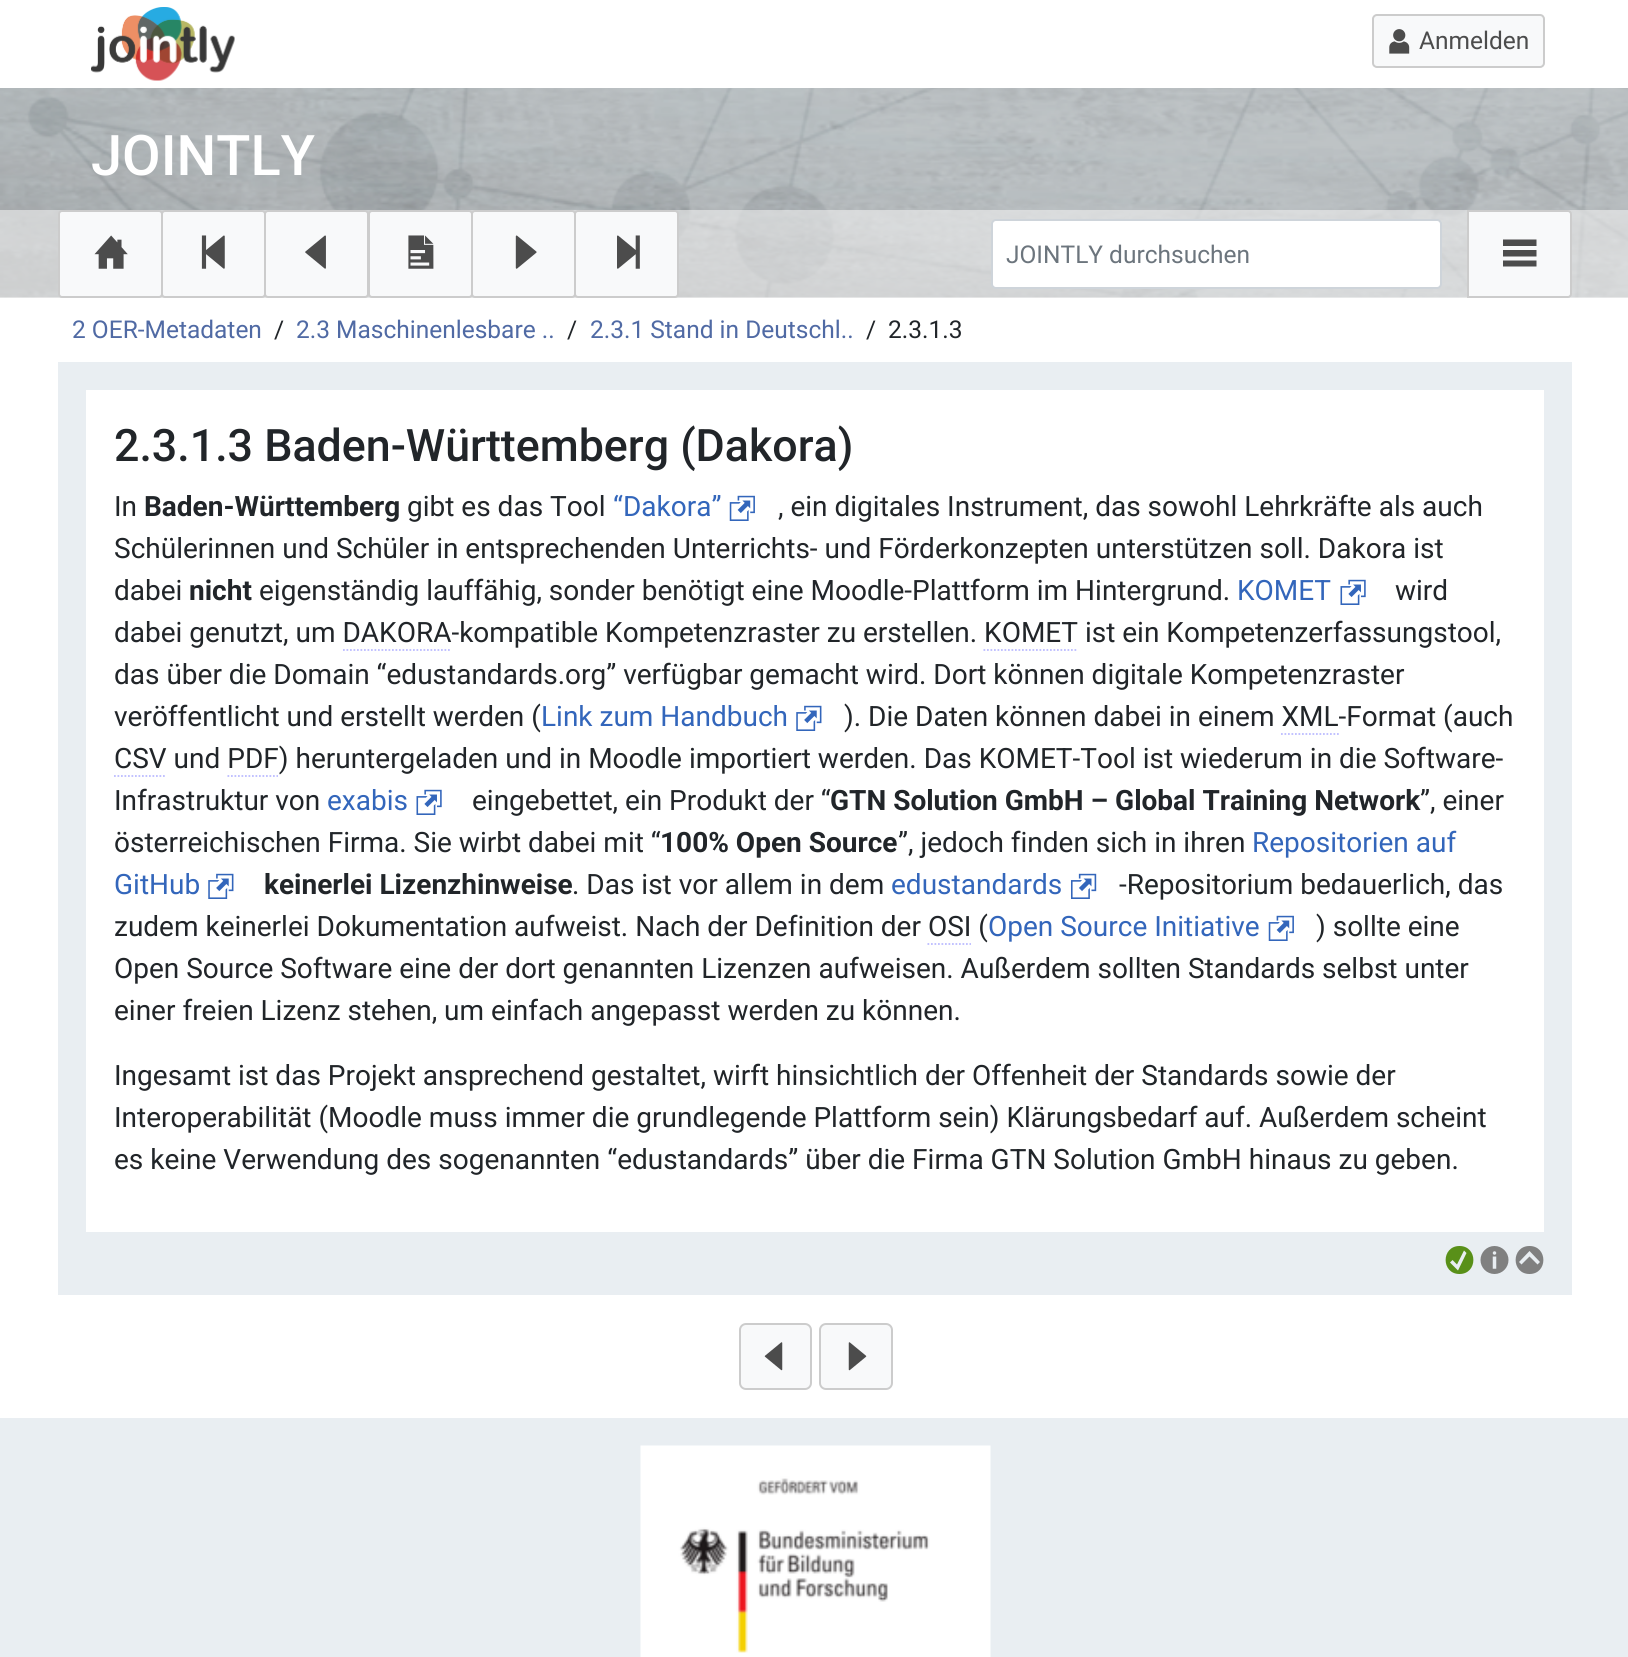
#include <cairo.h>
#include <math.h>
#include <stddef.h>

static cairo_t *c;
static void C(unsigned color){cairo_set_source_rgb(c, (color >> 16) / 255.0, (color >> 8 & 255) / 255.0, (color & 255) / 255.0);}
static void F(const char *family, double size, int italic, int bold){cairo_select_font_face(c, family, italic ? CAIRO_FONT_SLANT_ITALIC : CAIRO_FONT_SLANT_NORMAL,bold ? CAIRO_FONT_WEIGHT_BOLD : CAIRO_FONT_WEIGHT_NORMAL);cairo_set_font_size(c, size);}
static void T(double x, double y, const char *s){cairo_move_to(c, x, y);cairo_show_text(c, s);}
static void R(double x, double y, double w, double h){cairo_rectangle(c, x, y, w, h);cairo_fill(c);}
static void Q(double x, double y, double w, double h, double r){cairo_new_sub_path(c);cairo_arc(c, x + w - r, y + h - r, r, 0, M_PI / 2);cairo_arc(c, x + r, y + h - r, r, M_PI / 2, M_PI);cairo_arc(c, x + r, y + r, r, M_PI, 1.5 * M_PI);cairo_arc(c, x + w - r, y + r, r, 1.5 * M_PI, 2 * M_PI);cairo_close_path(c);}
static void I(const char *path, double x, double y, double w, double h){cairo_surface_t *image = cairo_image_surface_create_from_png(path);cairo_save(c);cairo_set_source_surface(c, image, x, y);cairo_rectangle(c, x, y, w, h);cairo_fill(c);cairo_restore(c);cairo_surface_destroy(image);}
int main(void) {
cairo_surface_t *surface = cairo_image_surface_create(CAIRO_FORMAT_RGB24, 1628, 1657);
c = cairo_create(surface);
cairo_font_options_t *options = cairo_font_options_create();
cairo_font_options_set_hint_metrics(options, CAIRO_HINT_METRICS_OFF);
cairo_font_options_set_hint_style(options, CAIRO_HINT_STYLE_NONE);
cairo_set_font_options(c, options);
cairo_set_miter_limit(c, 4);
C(0xffffff);
cairo_paint(c);
I("1.png",0,88,1628,210);
I("2.png",91,7,144,74);
C(0xf8f9fa);
Q(1373,15,171,52,4);
cairo_fill_preserve(c);
C(0xcccccc);
cairo_stroke(c);
I("3.png",1389,29,21,25);
F("Roboto",24.5,0,0);
C(0x4c4c4c);
T(1419,49,"Anmelden");
F("Roboto Medium",56,0,0);
C(0xffffff);
T(91,175,"JOINTLY");
cairo_set_source_rgba(c,0.941,0.941,0.941,0.6);
R(0,210,1628,88);
C(0xf8f9fa);
Q(59,211,103,86,3);
cairo_fill_preserve(c);
C(0xcccccc);
cairo_stroke(c);
I("4.png",94,235,34,34);
C(0xf8f9fa);
Q(162,211,103,86,3);
cairo_fill_preserve(c);
C(0xcccccc);
cairo_stroke(c);
I("5.png",201,235,24,34);
C(0xf8f9fa);
Q(265,211,103,86,3);
cairo_fill_preserve(c);
C(0xcccccc);
cairo_stroke(c);
I("6.png",305,235,21,34);
C(0xf8f9fa);
Q(369,211,103,86,3);
cairo_fill_preserve(c);
C(0xcccccc);
cairo_stroke(c);
I("7.png",408,235,26,34);
C(0xf8f9fa);
Q(472,211,103,86,3);
cairo_fill_preserve(c);
C(0xcccccc);
cairo_stroke(c);
I("8.png",515,235,22,34);
C(0xf8f9fa);
Q(575,211,103,86,3);
cairo_fill_preserve(c);
C(0xcccccc);
cairo_stroke(c);
I("9.png",617,235,23,34);
C(0xffffff);
Q(992,220,449,68,4);
cairo_fill_preserve(c);
C(0xced4da);
cairo_stroke(c);
F("Roboto",24.5,0,0);
C(0x6c757d);
T(1006,263,"JOINTLY durchsuchen");
C(0xf8f9fa);
cairo_new_path(c);
cairo_move_to(c,1468,211);
cairo_line_to(c,1568,211);
cairo_curve_to(c,1569.5,211,1571,212.5,1571,214);
cairo_line_to(c,1571,294);
cairo_curve_to(c,1571,295.5,1569.5,297,1568,297);
cairo_line_to(c,1468,297);
cairo_close_path(c);
cairo_fill_preserve(c);
C(0xcccccc);
cairo_stroke(c);
C(0x4c4c4c);
cairo_new_path(c);
cairo_move_to(c,1503,239.5);
cairo_line_to(c,1536.5,239.5);
cairo_line_to(c,1536.5,246);
cairo_line_to(c,1503,246);
cairo_close_path(c);
cairo_move_to(c,1503,250);
cairo_line_to(c,1536.5,250);
cairo_line_to(c,1536.5,256.5);
cairo_line_to(c,1503,256.5);
cairo_close_path(c);
cairo_move_to(c,1503,260.5);
cairo_line_to(c,1536.5,260.5);
cairo_line_to(c,1536.5,266.5);
cairo_line_to(c,1503,266.5);
cairo_close_path(c);
cairo_fill(c);
C(0x506aa4);
T(72,338,"2 OER-Metadaten");
C(0x212529);
T(274,338,"/");
C(0x506aa4);
T(296,338,"2.3 Maschinenlesbare ..");
C(0x212529);
T(567,338,"/");
C(0x506aa4);
T(590,338,"2.3.1 Stand in Deutschl..");
C(0x212529);
T(866,338,"/");
T(888,338,"2.3.1.3");
C(0xe9eef2);
R(58,362,1514,933);
C(0xffffff);
R(86,390,1458,842);
F("Roboto Medium",44.75,0,0);
C(0x212529);
T(114,461,"2.3.1.3 Baden-Württemberg (Dakora)");
F("Roboto",28,0,0);
T(114,516,"In");
F("Roboto",28,0,1);
T(144,516,"Baden-Württemberg");
F("Roboto",28,0,0);
T(407,516,"gibt es das Tool");
C(0x3366bb);
T(613,516,"“Dakora”");
I("10.png",729,495,26,26);
C(0x212529);
T(778,516,", ein digitales Instrument, das sowohl Lehrkräfte als auch");
T(114,558,"Schülerinnen und Schüler in entsprechenden Unterrichts- und Förderkonzepten unterstützen soll. Dakora ist");
T(114,600,"dabei");
F("Roboto",28,0,1);
T(189,600,"nicht");
F("Roboto",28,0,0);
T(259,600,"eigenständig lauffähig, sonder benötigt eine Moodle-Plattform im Hintergrund.");
C(0x3366bb);
T(1237,600,"KOMET");
I("11.png",1340,579,26,26);
C(0x212529);
T(1395,600,"wird");
T(114,642,"dabei genutzt, um DAKORA-kompatible Kompetenzraster zu erstellen. KOMET ist ein Kompetenzerfassungstool,");
cairo_new_path(c);
cairo_move_to(c,343,650);
cairo_line_to(c,451.5,650);
C(0xbbbbff);
cairo_set_line_width(c,1.8);
cairo_set_dash(c,(double[]){1.75,1.75},2,0);
cairo_stroke(c);
cairo_new_path(c);
cairo_move_to(c,983.5,650);
cairo_line_to(c,1078,650);
cairo_stroke(c);
C(0x212529);
T(114,684,"das über die Domain “edustandards.org” verfügbar gemacht wird. Dort können digitale Kompetenzraster");
T(114,726,"veröffentlicht und erstellt werden (");
C(0x3366bb);
T(541,726,"Link zum Handbuch");
I("12.png",796,705,26,26);
C(0x212529);
T(844,726,"). Die Daten können dabei in einem XML-Format (auch");
cairo_new_path(c);
cairo_move_to(c,1281,734);
cairo_line_to(c,1339,734);
C(0xbbbbff);
cairo_stroke(c);
C(0x212529);
T(114,768,"CSV und PDF) heruntergeladen und in Moodle importiert werden. Das KOMET-Tool ist wiederum in die Software-");
cairo_new_path(c);
cairo_move_to(c,114,776);
cairo_line_to(c,166,776);
C(0xbbbbff);
cairo_stroke(c);
cairo_new_path(c);
cairo_move_to(c,227.5,776);
cairo_line_to(c,278,776);
cairo_stroke(c);
C(0x212529);
T(114,810,"Infrastruktur von");
C(0x3366bb);
T(327,810,"exabis");
I("11.png",416,789,26,26);
C(0x212529);
T(472,810,"eingebettet, ein Produkt der “");
F("Roboto",28,0,1);
T(830,810,"GTN Solution GmbH – Global Training Network");
F("Roboto",28,0,0);
T(1420,810,"”, einer");
T(114,852,"österreichischen Firma. Sie wirbt dabei mit “");
F("Roboto",28,0,1);
T(660,852,"100% Open Source");
F("Roboto",28,0,0);
T(898,852,"”, jedoch finden sich in ihren");
C(0x3366bb);
T(1252,852,"Repositorien auf");
T(114,894,"GitHub");
I("12.png",208,873,26,26);
F("Roboto",28,0,1);
C(0x212529);
T(264,894,"keinerlei Lizenzhinweise");
F("Roboto",28,0,0);
T(572,894,". Das ist vor allem in dem");
C(0x3366bb);
T(891,894,"edustandards");
I("13.png",1071,873,26,26);
C(0x212529);
T(1119,894,"-Repositorium bedauerlich, das");
T(114,936,"zudem keinerlei Dokumentation aufweist. Nach der Definition der OSI (");
C(0x3366bb);
T(988,936,"Open Source Initiative");
I("10.png",1268,915,26,26);
C(0x212529);
T(1316,936,") sollte eine");
cairo_new_path(c);
cairo_move_to(c,927.5,944);
cairo_line_to(c,971,944);
C(0xbbbbff);
cairo_stroke(c);
C(0x212529);
T(114,978,"Open Source Software eine der dort genannten Lizenzen aufweisen. Außerdem sollten Standards selbst unter");
T(114,1020,"einer freien Lizenz stehen, um einfach angepasst werden zu können.");
T(114,1085,"Ingesamt ist das Projekt ansprechend gestaltet, wirft hinsichtlich der Offenheit der Standards sowie der");
T(114,1127,"Interoperabilität (Moodle muss immer die grundlegende Plattform sein) Klärungsbedarf auf. Außerdem scheint");
T(114,1169,"es keine Verwendung des sogenannten “edustandards” über die Firma GTN Solution GmbH hinaus zu geben.");
C(0x599019);
cairo_new_path(c);
cairo_move_to(c,1459.5,1246);
cairo_curve_to(c,1441,1246,1441,1274,1459.5,1274);
cairo_curve_to(c,1478,1274,1478,1246,1459.5,1246);
cairo_close_path(c);
cairo_move_to(c,1458,1270.5);
cairo_line_to(c,1450,1262.5);
cairo_line_to(c,1452.5,1260);
cairo_line_to(c,1457,1264.5);
cairo_line_to(c,1464,1250.5);
cairo_line_to(c,1466.5,1253);
cairo_close_path(c);
cairo_fill(c);
I("14.png",1480,1246,29,28);
C(0x808080);
cairo_new_path(c);
cairo_move_to(c,1529.5,1246);
cairo_curve_to(c,1511,1246,1511,1274,1529.5,1274);
cairo_curve_to(c,1548,1274,1548,1246,1529.5,1246);
cairo_close_path(c);
cairo_move_to(c,1537.5,1264.5);
cairo_line_to(c,1529.5,1256.5);
cairo_line_to(c,1521.5,1264.5);
cairo_line_to(c,1519,1262);
cairo_line_to(c,1529.5,1251);
cairo_line_to(c,1540,1262);
cairo_close_path(c);
cairo_fill(c);
C(0xf8f9fa);
Q(740,1324,71,65,6);
cairo_fill_preserve(c);
C(0xcccccc);
cairo_set_line_width(c,2);
cairo_set_dash(c,NULL,0,0);
cairo_stroke(c);
I("15.png",764,1342,19,29);
C(0xf8f9fa);
Q(820,1324,72,65,6);
cairo_fill_preserve(c);
C(0xcccccc);
cairo_stroke(c);
I("16.png",848,1342,19,29);
C(0xe9eef2);
R(0,1418,1628,239);
I("17.png",640,1445,351,212);
cairo_surface_write_to_png(surface, "o.png");
cairo_font_options_destroy(options);
cairo_destroy(c);
cairo_surface_destroy(surface);
return 0;
}
